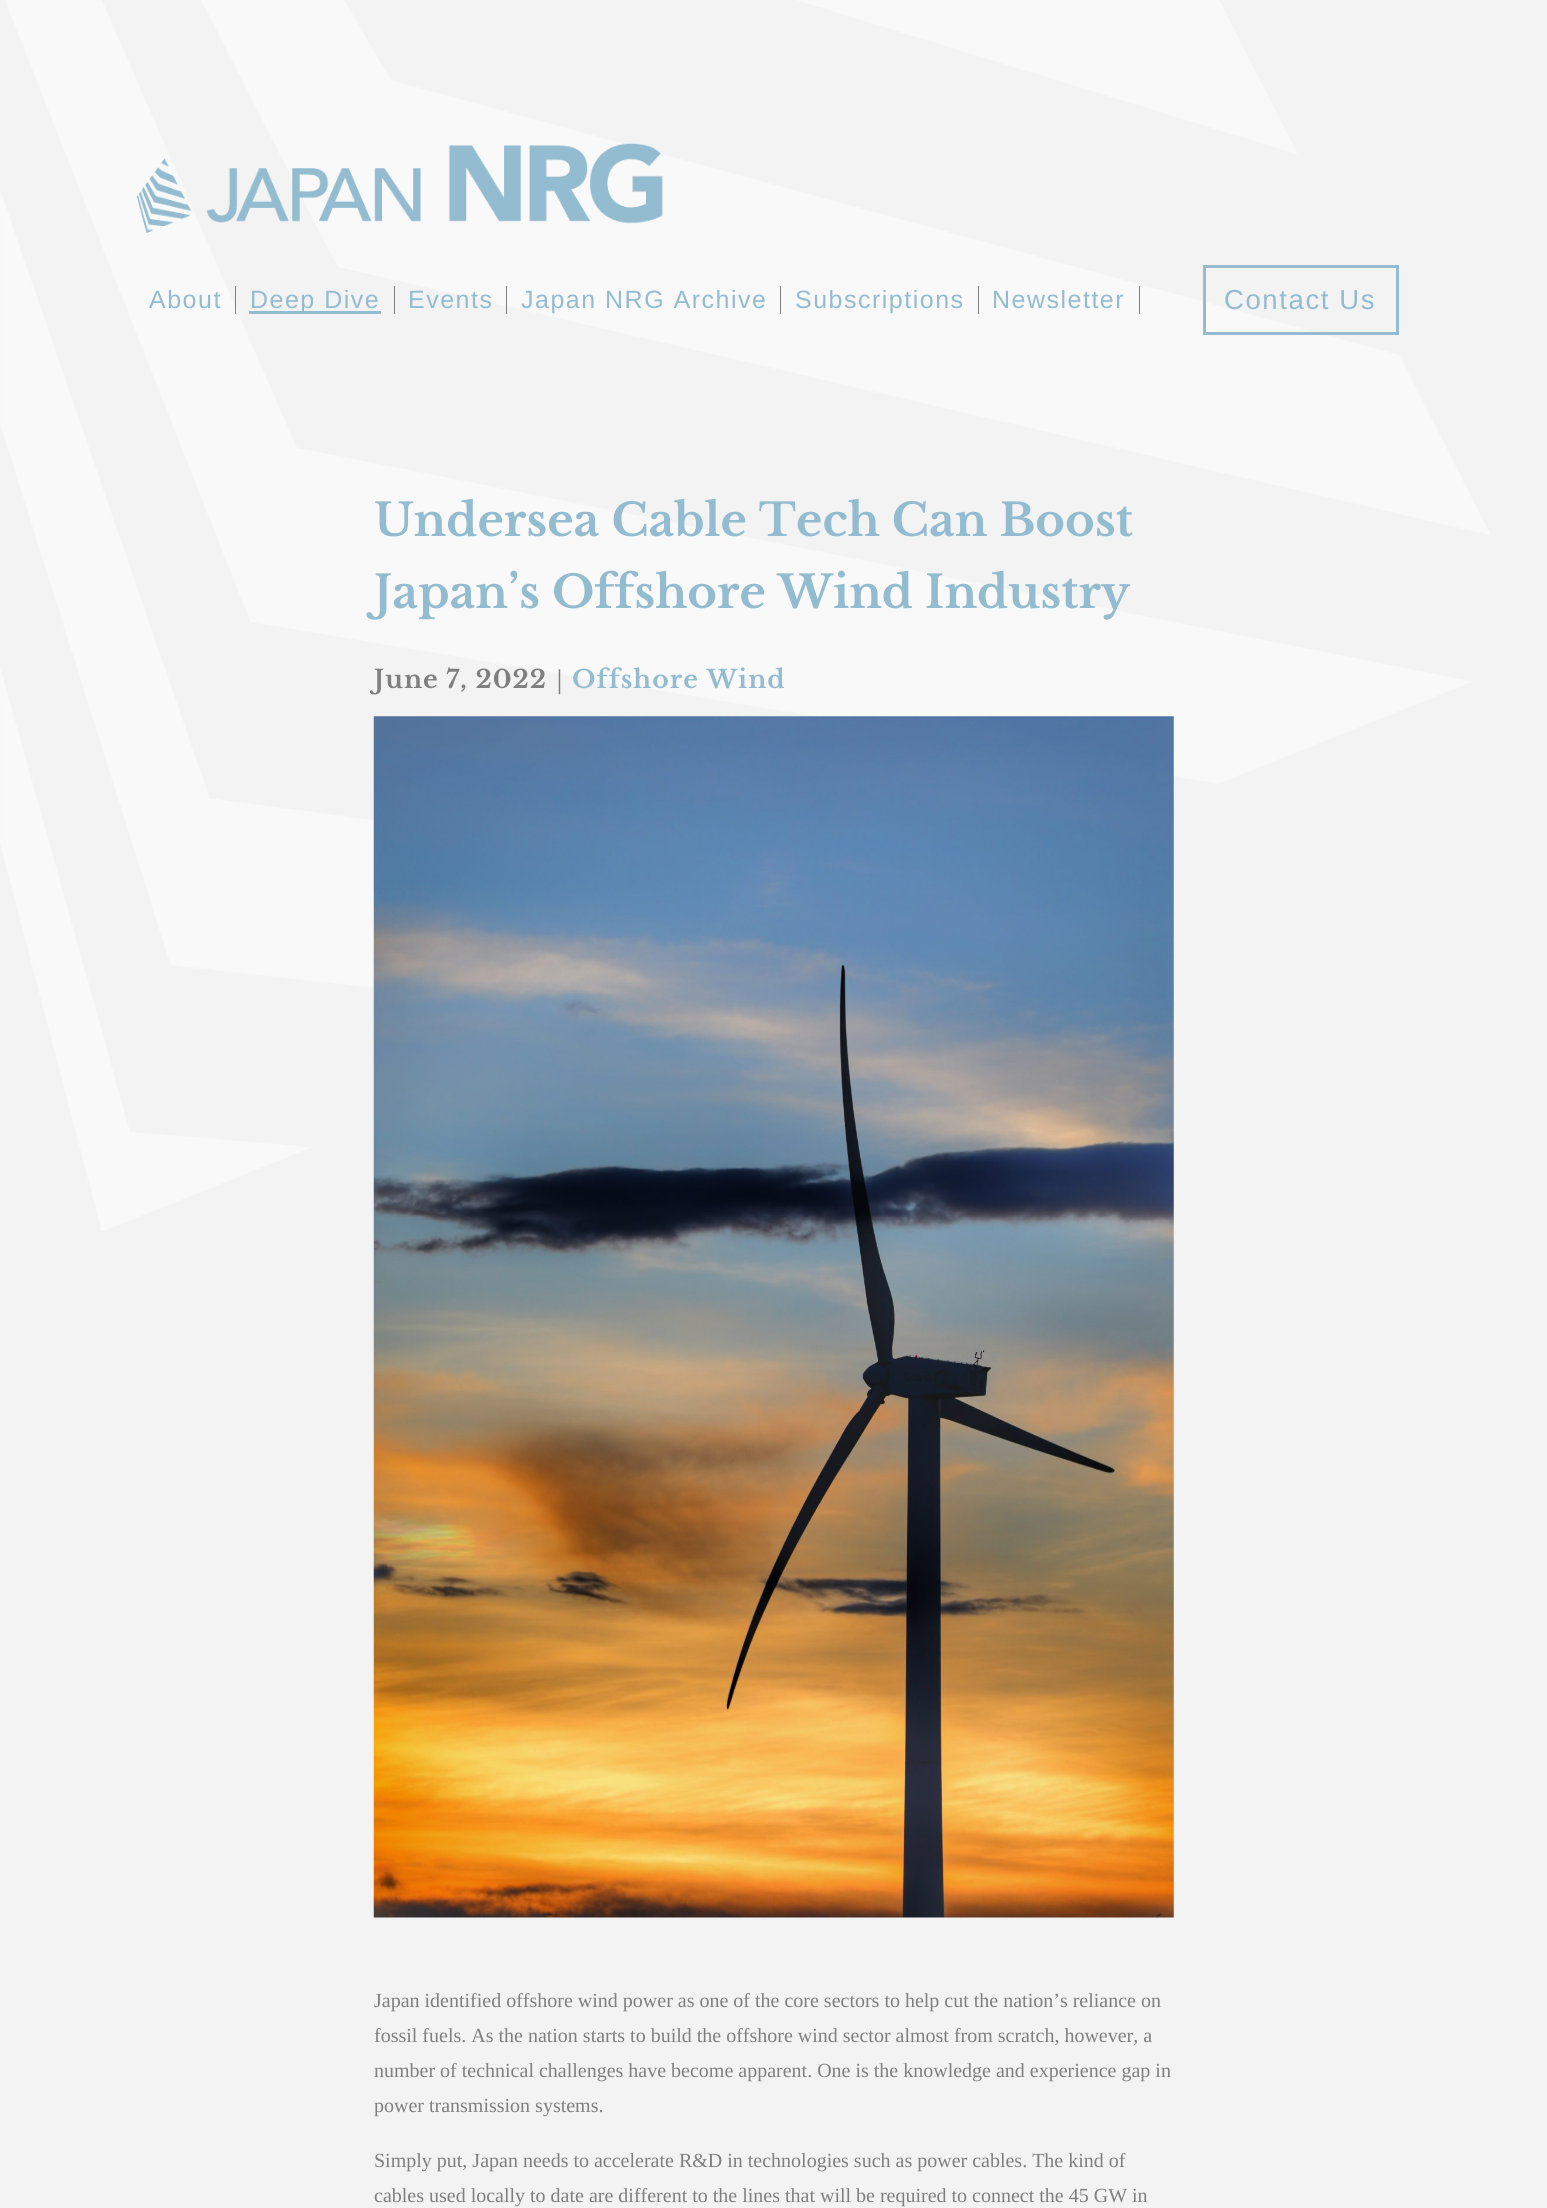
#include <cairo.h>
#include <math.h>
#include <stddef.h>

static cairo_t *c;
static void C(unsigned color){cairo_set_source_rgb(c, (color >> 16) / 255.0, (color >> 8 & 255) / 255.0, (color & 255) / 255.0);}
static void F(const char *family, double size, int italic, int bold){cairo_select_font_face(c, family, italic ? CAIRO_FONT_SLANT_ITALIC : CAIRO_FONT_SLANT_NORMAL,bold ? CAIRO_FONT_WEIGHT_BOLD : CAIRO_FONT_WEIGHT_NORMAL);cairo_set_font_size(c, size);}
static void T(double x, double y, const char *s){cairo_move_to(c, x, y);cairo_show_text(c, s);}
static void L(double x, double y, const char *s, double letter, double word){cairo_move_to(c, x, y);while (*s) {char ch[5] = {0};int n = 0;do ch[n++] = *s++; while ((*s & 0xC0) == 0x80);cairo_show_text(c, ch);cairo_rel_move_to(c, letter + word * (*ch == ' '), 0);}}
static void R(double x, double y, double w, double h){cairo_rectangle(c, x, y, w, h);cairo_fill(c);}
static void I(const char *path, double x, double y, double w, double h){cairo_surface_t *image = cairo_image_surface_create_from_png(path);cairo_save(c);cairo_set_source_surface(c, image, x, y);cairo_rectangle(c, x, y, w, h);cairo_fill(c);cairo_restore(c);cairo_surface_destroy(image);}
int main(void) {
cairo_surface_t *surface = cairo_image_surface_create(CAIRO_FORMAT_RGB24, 1547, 2208);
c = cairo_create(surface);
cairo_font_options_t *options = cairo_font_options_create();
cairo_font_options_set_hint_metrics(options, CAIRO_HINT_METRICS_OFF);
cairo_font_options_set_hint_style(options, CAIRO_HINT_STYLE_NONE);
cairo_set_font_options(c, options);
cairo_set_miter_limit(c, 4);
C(0xf3f3f4);
cairo_paint(c);
I("1.png",0,0,1490,1231);
I("2.png",136,143,527,90);
C(0x7f7f80);
R(235,286,1,28);
F("Liberation Sans",25,0,0);
C(0x94bcd0);
L(149,308,"About",1.5,0);
C(0x7f7f80);
R(394,286,1,28);
C(0x94bcd0);
R(249,311,132,3);
L(250,308,"Deep Dive",1.5,0);
C(0x7f7f80);
R(506,286,1,28);
C(0x94bcd0);
L(408,308,"Events",1.5,0);
C(0x7f7f80);
R(780,286,1,28);
C(0x94bcd0);
L(521,308,"Japan NRG Archive",1.5,0);
C(0x7f7f80);
R(978,286,1,28);
C(0x94bcd0);
L(795,308,"Subscriptions",1.5,0);
C(0x7f7f80);
R(1139,286,1,28);
C(0x94bcd0);
L(992,308,"Newsletter",1.5,0);
cairo_rectangle(c,1204.5,266.5,193,67);
cairo_set_line_width(c,3);
cairo_stroke(c);
F("Liberation Sans",27.5,0,0);
L(1224,309,"Contact Us",1.6,0);
F("Libre Baskerville",45,0,1);
T(374,536,"Undersea Cable Tech Can Boost");
T(374,608,"Japan’s Offshore Wind Industry");
F("Libre Baskerville",25,0,1);
C(0x7f7f80);
L(374,688,"June 7, 2022",1,0);
F("WenQuanYi Zen Hei Medium",25,0,0);
L(547,688,"｜",1,0);
F("Libre Baskerville",25,0,1);
C(0x94bcd0);
L(572,688,"Offshore Wind",1,0);
I("3.png",373,716,801,1202);
F("Liberation Serif",20,0,0);
C(0x7f7f80);
T(374,2007,"Japan identified offshore wind power as one of the core sectors to help cut the nation’s reliance on");
T(374,2042,"fossil fuels. As the nation starts to build the offshore wind sector almost from scratch, however, a");
T(374,2077,"number of technical challenges have become apparent. One is the knowledge and experience gap in");
T(374,2112,"power transmission systems.");
T(374,2167,"Simply put, Japan needs to accelerate R&D in technologies such as power cables. The kind of");
T(374,2202,"cables used locally to date are different to the lines that will be required to connect the 45 GW in");
cairo_surface_write_to_png(surface, "o.png");
cairo_font_options_destroy(options);
cairo_destroy(c);
cairo_surface_destroy(surface);
return 0;
}
